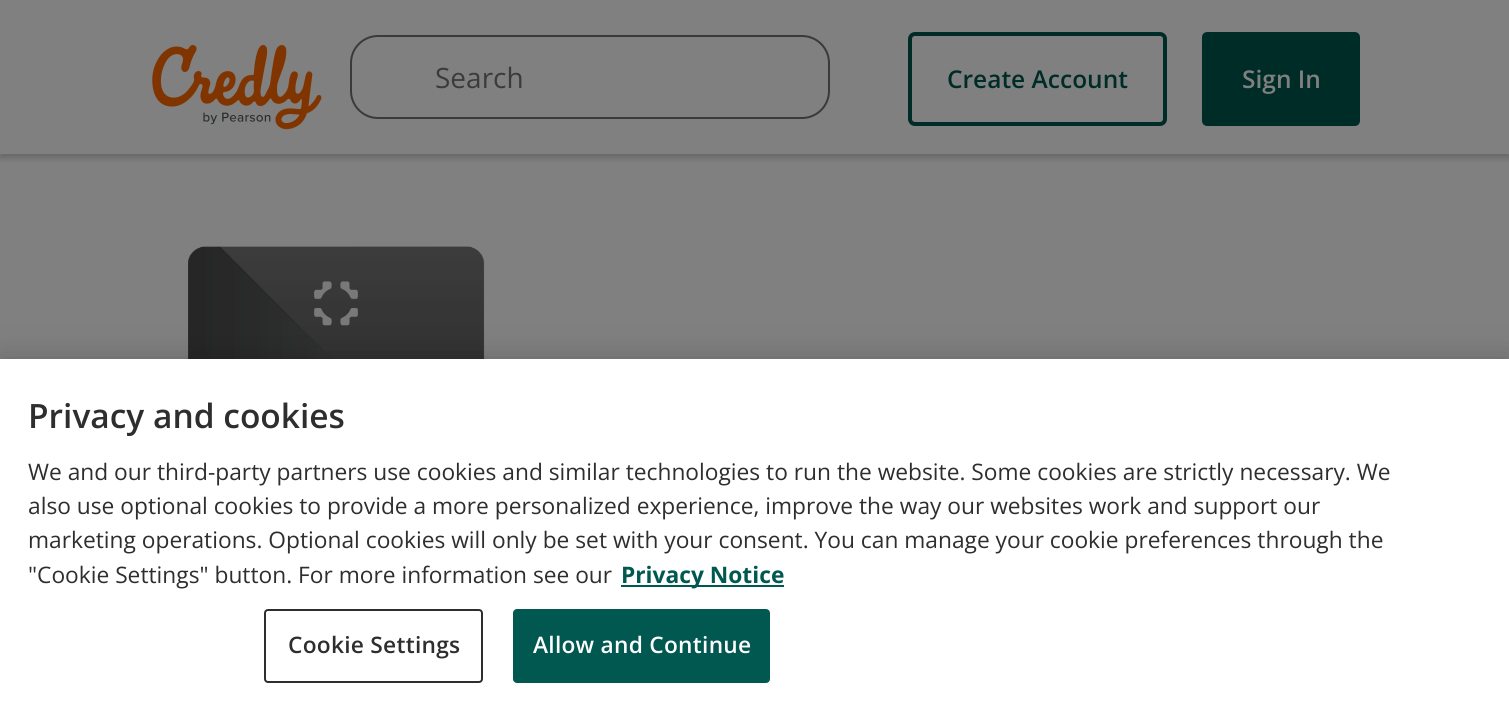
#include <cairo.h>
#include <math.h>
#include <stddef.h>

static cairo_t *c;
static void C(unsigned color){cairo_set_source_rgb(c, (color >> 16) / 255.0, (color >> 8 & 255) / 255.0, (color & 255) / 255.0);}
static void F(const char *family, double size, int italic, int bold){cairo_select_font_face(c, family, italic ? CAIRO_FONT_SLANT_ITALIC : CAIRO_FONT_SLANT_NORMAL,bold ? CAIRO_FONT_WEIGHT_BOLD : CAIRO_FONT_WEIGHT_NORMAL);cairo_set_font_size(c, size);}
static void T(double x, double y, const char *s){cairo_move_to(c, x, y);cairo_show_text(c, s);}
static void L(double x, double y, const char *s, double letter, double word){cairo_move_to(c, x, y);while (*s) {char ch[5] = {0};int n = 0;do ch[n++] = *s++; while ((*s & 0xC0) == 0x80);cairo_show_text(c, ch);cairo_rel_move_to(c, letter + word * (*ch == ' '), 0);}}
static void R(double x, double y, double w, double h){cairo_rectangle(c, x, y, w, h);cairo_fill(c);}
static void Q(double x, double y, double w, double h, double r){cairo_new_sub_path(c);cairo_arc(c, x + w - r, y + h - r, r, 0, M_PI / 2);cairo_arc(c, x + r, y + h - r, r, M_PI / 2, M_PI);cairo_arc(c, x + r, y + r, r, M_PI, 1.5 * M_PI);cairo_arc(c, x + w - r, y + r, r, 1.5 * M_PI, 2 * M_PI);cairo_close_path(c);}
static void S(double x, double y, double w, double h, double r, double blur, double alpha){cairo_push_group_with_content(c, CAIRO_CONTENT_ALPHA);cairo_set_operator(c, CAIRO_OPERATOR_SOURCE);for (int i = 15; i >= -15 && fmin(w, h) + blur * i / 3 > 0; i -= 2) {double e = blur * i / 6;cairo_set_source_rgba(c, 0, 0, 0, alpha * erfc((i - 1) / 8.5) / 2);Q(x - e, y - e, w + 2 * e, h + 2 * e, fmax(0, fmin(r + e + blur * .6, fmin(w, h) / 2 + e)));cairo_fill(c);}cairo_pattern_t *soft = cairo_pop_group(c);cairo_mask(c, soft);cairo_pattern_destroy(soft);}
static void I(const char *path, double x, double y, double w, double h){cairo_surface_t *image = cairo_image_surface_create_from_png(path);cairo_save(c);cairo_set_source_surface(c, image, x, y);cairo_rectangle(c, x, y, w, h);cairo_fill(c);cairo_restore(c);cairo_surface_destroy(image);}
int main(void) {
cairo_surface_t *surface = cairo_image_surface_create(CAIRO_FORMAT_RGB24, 1509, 709);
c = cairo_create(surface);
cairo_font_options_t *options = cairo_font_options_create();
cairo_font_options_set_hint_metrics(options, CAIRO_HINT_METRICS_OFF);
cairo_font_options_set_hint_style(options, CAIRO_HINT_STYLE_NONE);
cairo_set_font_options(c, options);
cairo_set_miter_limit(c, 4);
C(0x808080);
cairo_paint(c);
cairo_save(c);
cairo_rectangle(c,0,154,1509,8);
cairo_clip(c);
C(0x000000);
S(0,4,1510,154,0,3.5,.2);
cairo_restore(c);
I("1.png",152,44,170,86);
Q(351,36,478,82,27);
C(0x3a3a3a);
cairo_stroke(c);
F("Open Sans",28,0,0);
C(0x3b3b3b);
T(435,88,"Search");
Q(910,34,255,90,5);
C(0x002c28);
cairo_set_line_width(c,4);
cairo_stroke(c);
F("Open Sans SemiBold",24.5,0,0);
T(947,88,"Create Account");
Q(1204,34,154,90,3);
cairo_fill_preserve(c);
cairo_stroke(c);
C(0x808080);
T(1242,88,"Sign In");
I("2.png",188,246,297,113);
C(0x000000);
S(0,359,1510,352,0,16,.2);
C(0xffffff);
R(0,359,1509,350);
F("Open Sans SemiBold",33.5,0,0);
C(0x2e2e2e);
T(28,428,"Privacy and cookies");
F("Open Sans",22.75,0,0);
T(28,480,"We and our third-party partners use cookies and similar technologies to run the website. Some cookies are strictly necessary. We");
T(28,514,"also use optional cookies to provide a more personalized experience, improve the way our websites work and support our");
T(28,548,"marketing operations. Optional cookies will only be set with your consent. You can manage your cookie preferences through the");
T(28,583,"\"Cookie Settings\" button. For more information see our");
C(0x005850);
R(621,585,163,2);
F("Open Sans",22.75,0,1);
T(621,583,"Privacy Notice");
Q(265,610,217,72,3);
C(0x2e2e2e);
cairo_set_line_width(c,2);
cairo_stroke(c);
F("Open Sans SemiBold",22.75,0,0);
L(288,653,"Cookie Settings",.25,0);
C(0x005850);
Q(514,610,255,72,3);
cairo_fill_preserve(c);
cairo_stroke(c);
C(0xfefefe);
L(533,653,"Allow and Continue",.25,0);
cairo_surface_write_to_png(surface, "o.png");
cairo_font_options_destroy(options);
cairo_destroy(c);
cairo_surface_destroy(surface);
return 0;
}
